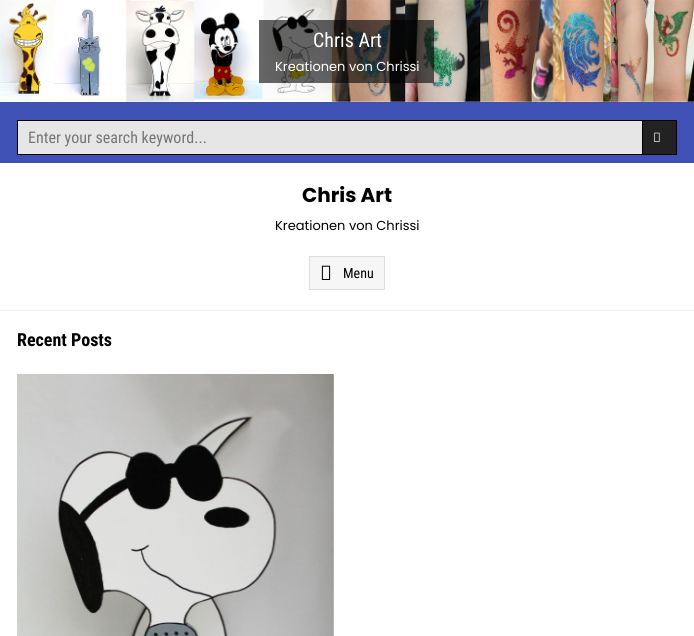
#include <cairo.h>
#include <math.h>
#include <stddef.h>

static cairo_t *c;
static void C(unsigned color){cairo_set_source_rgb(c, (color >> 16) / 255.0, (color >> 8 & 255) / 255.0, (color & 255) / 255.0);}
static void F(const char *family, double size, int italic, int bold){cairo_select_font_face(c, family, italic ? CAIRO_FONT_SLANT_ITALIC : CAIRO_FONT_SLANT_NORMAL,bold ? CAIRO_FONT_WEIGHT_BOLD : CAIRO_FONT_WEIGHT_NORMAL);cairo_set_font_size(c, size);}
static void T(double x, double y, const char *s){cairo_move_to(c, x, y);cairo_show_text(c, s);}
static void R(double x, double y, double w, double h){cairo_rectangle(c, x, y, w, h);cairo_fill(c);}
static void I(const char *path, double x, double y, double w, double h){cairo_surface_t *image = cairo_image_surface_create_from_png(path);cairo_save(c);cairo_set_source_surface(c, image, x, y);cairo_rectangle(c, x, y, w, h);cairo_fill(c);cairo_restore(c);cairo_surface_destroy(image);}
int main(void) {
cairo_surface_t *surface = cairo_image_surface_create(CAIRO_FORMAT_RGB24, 694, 636);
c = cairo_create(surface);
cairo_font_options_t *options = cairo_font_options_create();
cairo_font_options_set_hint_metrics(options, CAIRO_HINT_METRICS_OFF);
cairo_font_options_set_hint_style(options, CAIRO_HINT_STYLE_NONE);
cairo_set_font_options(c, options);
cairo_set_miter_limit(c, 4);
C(0xffffff);
cairo_paint(c);
I("1.png",0,0,694,102);
cairo_set_source_rgba(c,0,0,0,0.6);
R(259,20,175,63);
F("Roboto Condensed",20,0,0);
C(0xffffff);
T(313,47,"Chris Art");
F("Poppins",13,0,0);
T(275,71,"Kreationen von Chrissi");
C(0x3f51b5);
R(0,102,694,61);
C(0xe6e6e6);
R(18,121,624,33);
cairo_rectangle(c,17.5,120.5,659,34);
C(0x000000);
cairo_set_line_width(c,1);
cairo_stroke(c);
F("Roboto Condensed",16,0,0);
C(0x757575);
T(28,143,"Enter your search keyword...");
C(0x222222);
cairo_rectangle(c,642.5,120.5,34,34);
cairo_fill_preserve(c);
C(0x000000);
cairo_stroke(c);
I("2.png",654,132,6,10);
C(0xefefef);
R(0,310,694,1);
F("Poppins",20,0,1);
C(0x000000);
T(302,202,"Chris Art");
F("Poppins",13,0,0);
T(275,230,"Kreationen von Chrissi");
C(0xf6f6f6);
cairo_rectangle(c,309.5,256.5,75,33);
cairo_fill_preserve(c);
C(0xdddddd);
cairo_stroke(c);
I("3.png",321,265,10,15);
F("Roboto Condensed",14,0,0);
C(0x000000);
T(343,278,"Menu");
F("Roboto Condensed",18,0,1);
T(17,346,"Recent Posts");
I("4.png",17,374,317,262);
cairo_surface_write_to_png(surface, "o.png");
cairo_font_options_destroy(options);
cairo_destroy(c);
cairo_surface_destroy(surface);
return 0;
}
